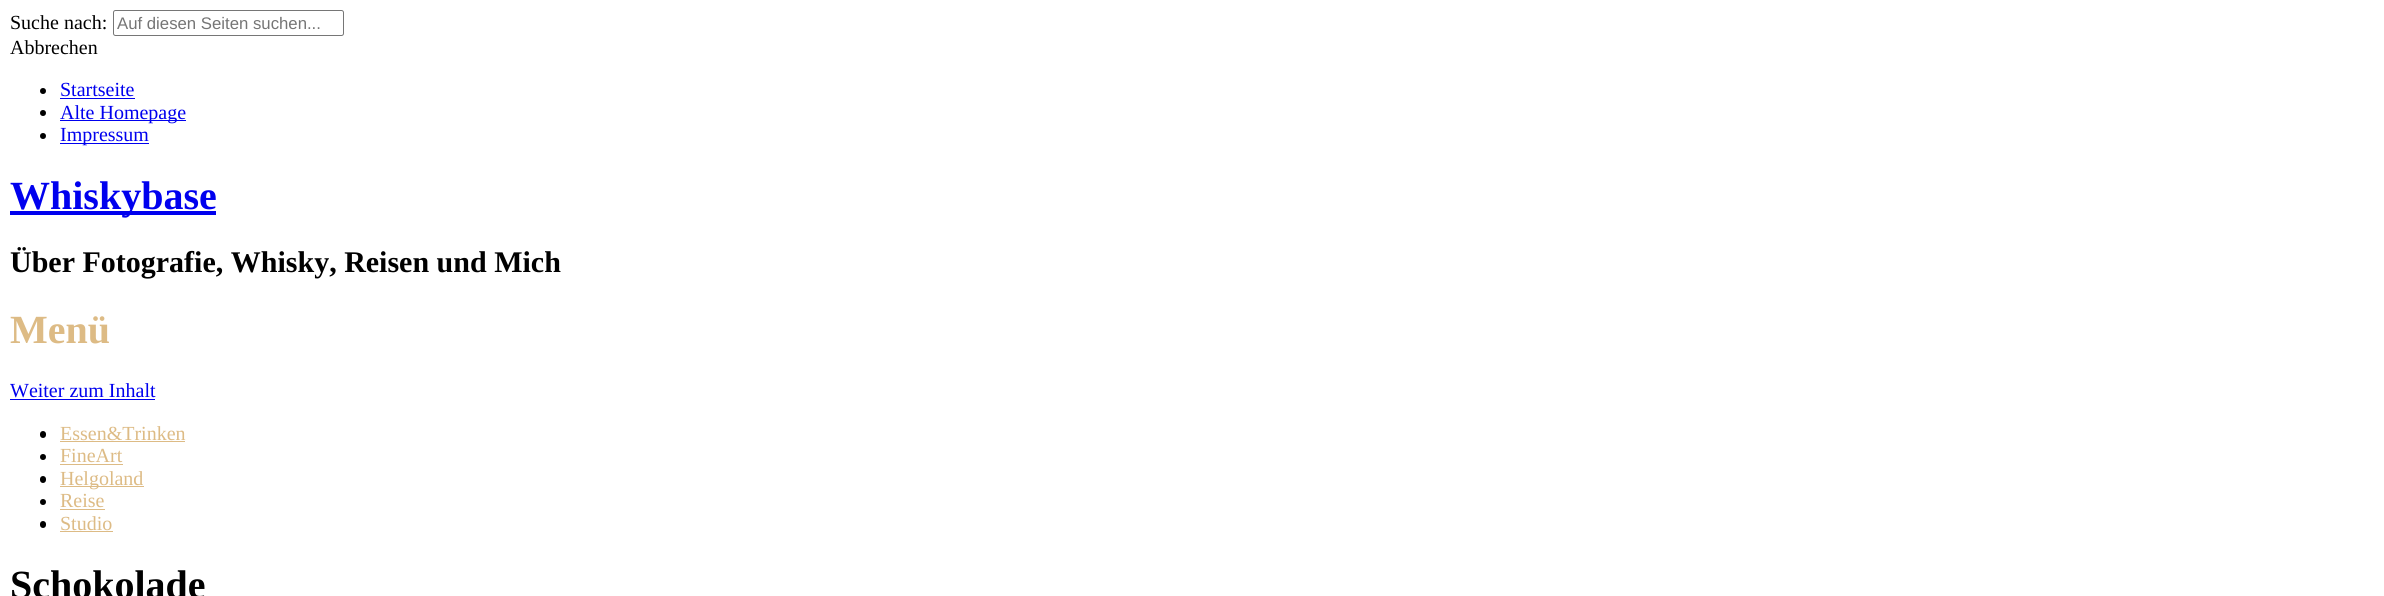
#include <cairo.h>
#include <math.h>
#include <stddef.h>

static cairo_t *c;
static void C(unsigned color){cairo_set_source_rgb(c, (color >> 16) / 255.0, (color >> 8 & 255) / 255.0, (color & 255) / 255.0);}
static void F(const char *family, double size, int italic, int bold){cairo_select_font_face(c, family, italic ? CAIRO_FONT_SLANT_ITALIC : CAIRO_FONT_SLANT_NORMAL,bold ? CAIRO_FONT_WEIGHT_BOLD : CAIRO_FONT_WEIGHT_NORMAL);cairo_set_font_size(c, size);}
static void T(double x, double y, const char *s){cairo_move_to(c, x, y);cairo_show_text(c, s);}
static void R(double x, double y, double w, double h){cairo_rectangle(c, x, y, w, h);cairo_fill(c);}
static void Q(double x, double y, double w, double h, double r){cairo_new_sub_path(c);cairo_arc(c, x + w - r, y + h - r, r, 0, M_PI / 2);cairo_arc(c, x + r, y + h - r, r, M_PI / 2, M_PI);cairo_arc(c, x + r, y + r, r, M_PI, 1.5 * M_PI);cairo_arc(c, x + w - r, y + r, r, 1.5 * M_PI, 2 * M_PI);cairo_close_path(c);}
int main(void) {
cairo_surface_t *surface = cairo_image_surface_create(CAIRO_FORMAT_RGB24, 2384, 596);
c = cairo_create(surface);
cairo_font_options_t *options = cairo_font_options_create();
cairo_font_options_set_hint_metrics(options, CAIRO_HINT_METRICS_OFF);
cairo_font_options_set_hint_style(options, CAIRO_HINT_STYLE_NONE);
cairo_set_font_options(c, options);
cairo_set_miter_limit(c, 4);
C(0xffffff);
cairo_paint(c);
F("Liberation Serif",20,0,0);
C(0x000000);
T(10,29,"Suche nach:");
Q(113.5,10.5,230,25,2);
C(0x767676);
cairo_set_line_width(c,1);
cairo_stroke(c);
F("Liberation Sans",16.75,0,0);
C(0x757575);
T(117,29,"Auf diesen Seiten suchen...");
F("Liberation Serif",20,0,0);
C(0x000000);
T(10,54,"Abbrechen");
cairo_new_path(c);
cairo_arc(c,43,91,3,0,2 * M_PI);
cairo_fill(c);
C(0x0000ee);
T(60,96,"Startseite");
R(60,98,75,1);
C(0x000000);
cairo_new_path(c);
cairo_arc(c,43,113,3,0,2 * M_PI);
cairo_fill(c);
C(0x0000ee);
R(60,120,126,1);
T(60,119,"Alte Homepage");
C(0x000000);
cairo_new_path(c);
cairo_arc(c,43,136,3,0,2 * M_PI);
cairo_fill(c);
C(0x0000ee);
R(60,143,89,1);
T(60,141,"Impressum");
R(10,211,206,4);
F("Liberation Serif",40,0,1);
T(10,209,"Whiskybase");
F("Liberation Serif",30,0,1);
C(0x000000);
T(10,272,"Über Fotografie, Whisky, Reisen und Mich");
F("Liberation Serif",40,0,1);
C(0xddbb85);
T(10,343,"Menü");
F("Liberation Serif",20,0,0);
C(0x0000ee);
T(10,397,"Weiter zum Inhalt");
R(10,399,145,1);
C(0x000000);
Q(40,431,6,7,3);
cairo_fill(c);
C(0xddbb85);
T(60,440,"Essen&Trinken");
R(60,441,125,1);
C(0x000000);
cairo_new_path(c);
cairo_arc(c,43,457,3,0,2 * M_PI);
cairo_fill(c);
C(0xddbb85);
T(60,462,"FineArt");
R(60,464,63,1);
C(0x000000);
Q(40,476,6,7,3);
cairo_fill(c);
C(0xddbb85);
R(60,486,84,1);
T(60,485,"Helgoland");
C(0x000000);
cairo_new_path(c);
cairo_arc(c,43,502,3,0,2 * M_PI);
cairo_fill(c);
C(0xddbb85);
T(60,507,"Reise");
R(60,509,45,1);
C(0x000000);
Q(40,521,6,7,3);
cairo_fill(c);
C(0xddbb85);
T(60,530,"Studio");
R(60,531,53,1);
F("Liberation Serif",40,0,1);
C(0x000000);
T(10,598,"Schokolade");
cairo_surface_write_to_png(surface, "o.png");
cairo_font_options_destroy(options);
cairo_destroy(c);
cairo_surface_destroy(surface);
return 0;
}
